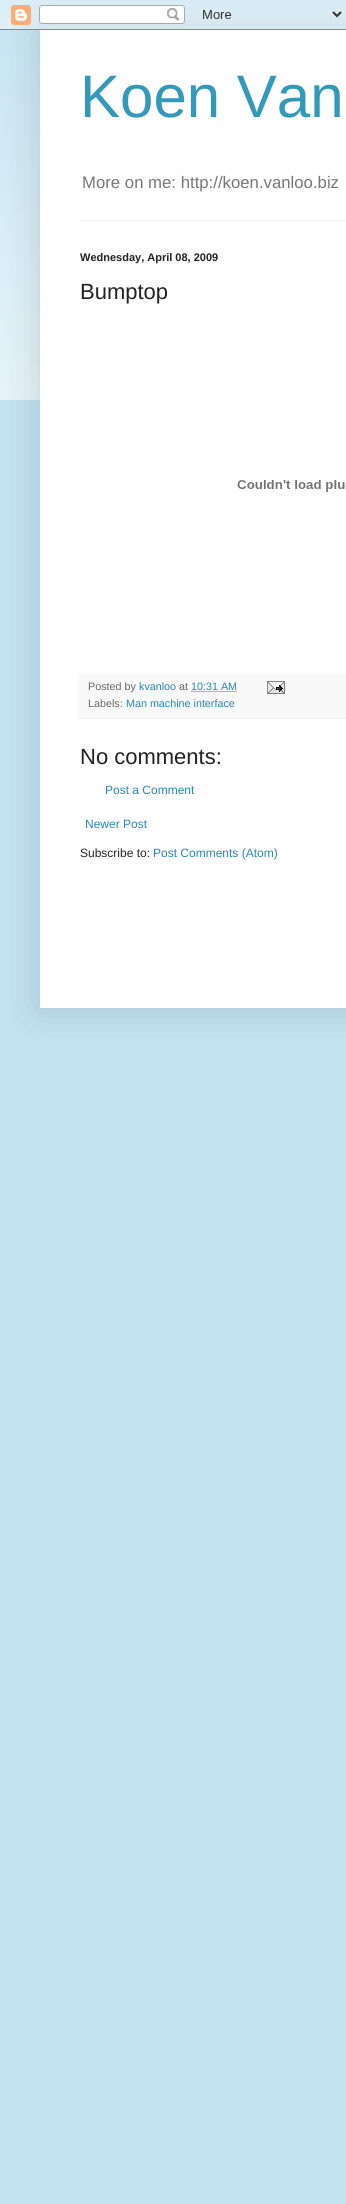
#include <cairo.h>
#include <math.h>
#include <stddef.h>

static cairo_t *c;
static void C(unsigned color){cairo_set_source_rgb(c, (color >> 16) / 255.0, (color >> 8 & 255) / 255.0, (color & 255) / 255.0);}
static void F(const char *family, double size, int italic, int bold){cairo_select_font_face(c, family, italic ? CAIRO_FONT_SLANT_ITALIC : CAIRO_FONT_SLANT_NORMAL,bold ? CAIRO_FONT_WEIGHT_BOLD : CAIRO_FONT_WEIGHT_NORMAL);cairo_set_font_size(c, size);}
static void T(double x, double y, const char *s){cairo_move_to(c, x, y);cairo_show_text(c, s);}
static void R(double x, double y, double w, double h){cairo_rectangle(c, x, y, w, h);cairo_fill(c);}
static void Q(double x, double y, double w, double h, double r){cairo_new_sub_path(c);cairo_arc(c, x + w - r, y + h - r, r, 0, M_PI / 2);cairo_arc(c, x + r, y + h - r, r, M_PI / 2, M_PI);cairo_arc(c, x + r, y + r, r, M_PI, 1.5 * M_PI);cairo_arc(c, x + w - r, y + r, r, 1.5 * M_PI, 2 * M_PI);cairo_close_path(c);}
static void S(double x, double y, double w, double h, double r, double blur, double alpha){cairo_push_group_with_content(c, CAIRO_CONTENT_ALPHA);cairo_set_operator(c, CAIRO_OPERATOR_SOURCE);for (int i = 15; i >= -15 && fmin(w, h) + blur * i / 3 > 0; i -= 2) {double e = blur * i / 6;cairo_set_source_rgba(c, 0, 0, 0, alpha * erfc((i - 1) / 8.5) / 2);Q(x - e, y - e, w + 2 * e, h + 2 * e, fmax(0, fmin(r + e + blur * .6, fmin(w, h) / 2 + e)));cairo_fill(c);}cairo_pattern_t *soft = cairo_pop_group(c);cairo_mask(c, soft);cairo_pattern_destroy(soft);}
static void I(const char *path, double x, double y, double w, double h){cairo_surface_t *image = cairo_image_surface_create_from_png(path);cairo_save(c);cairo_set_source_surface(c, image, x, y);cairo_rectangle(c, x, y, w, h);cairo_fill(c);cairo_restore(c);cairo_surface_destroy(image);}
int main(void) {
cairo_surface_t *surface = cairo_image_surface_create(CAIRO_FORMAT_RGB24, 346, 2204);
c = cairo_create(surface);
cairo_font_options_t *options = cairo_font_options_create();
cairo_font_options_set_hint_metrics(options, CAIRO_HINT_METRICS_OFF);
cairo_font_options_set_hint_style(options, CAIRO_HINT_STYLE_NONE);
cairo_set_font_options(c, options);
cairo_set_miter_limit(c, 4);
C(0xc2e3f2);
cairo_paint(c);
I("2.png",0,10,346,390);
C(0x000000);
S(40,30,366,978,0,20,.15);
I("1.png",0,0,346,30);
C(0xffffff);
R(40,30,306,978);
F("Liberation Sans",60,0,0);
C(0x3399bb);
T(80,117,"Koen Van");
F("Liberation Sans",16.75,0,0);
C(0x777777);
T(82,188,"More on me: http://koen.vanloo.biz");
C(0xeeeeee);
R(80,220,266,1);
F("Liberation Sans",11,0,1);
C(0x222222);
T(80,261,"Wednesday, April 08, 2009");
F("Liberation Sans",22,0,0);
T(80,299,"Bumptop");
I("3.png",237,480,109,12);
C(0xf9f9f9);
R(78,673,268,45);
C(0xeeeeee);
R(78,718,268,1);
F("Liberation Sans",10.75,0,0);
C(0x666666);
T(88,690,"Posted by");
C(0x2288bb);
T(139,690,"kvanloo");
C(0x666666);
T(179,690,"at");
C(0x2288bb);
T(191,690,"10:31 AM");
cairo_new_path(c);
cairo_move_to(c,191.5,691.5);
cairo_line_to(c,237.5,691.5);
cairo_set_line_width(c,1);
cairo_set_dash(c,(double[]){1,1},2,0);
cairo_stroke(c);
I("4.png",267,681,18,13);
C(0x666666);
T(88,707,"Labels:");
C(0x2288bb);
T(126,707,"Man machine interface");
F("Liberation Sans",22,0,0);
C(0x222222);
T(80,764,"No comments:");
F("Liberation Sans",12,0,0);
C(0x2288bb);
T(105,794,"Post a Comment");
T(85,828,"Newer Post");
C(0x222222);
T(80,857,"Subscribe to:");
C(0x2288bb);
T(153,857,"Post Comments (Atom)");
cairo_surface_write_to_png(surface, "o.png");
cairo_font_options_destroy(options);
cairo_destroy(c);
cairo_surface_destroy(surface);
return 0;
}
